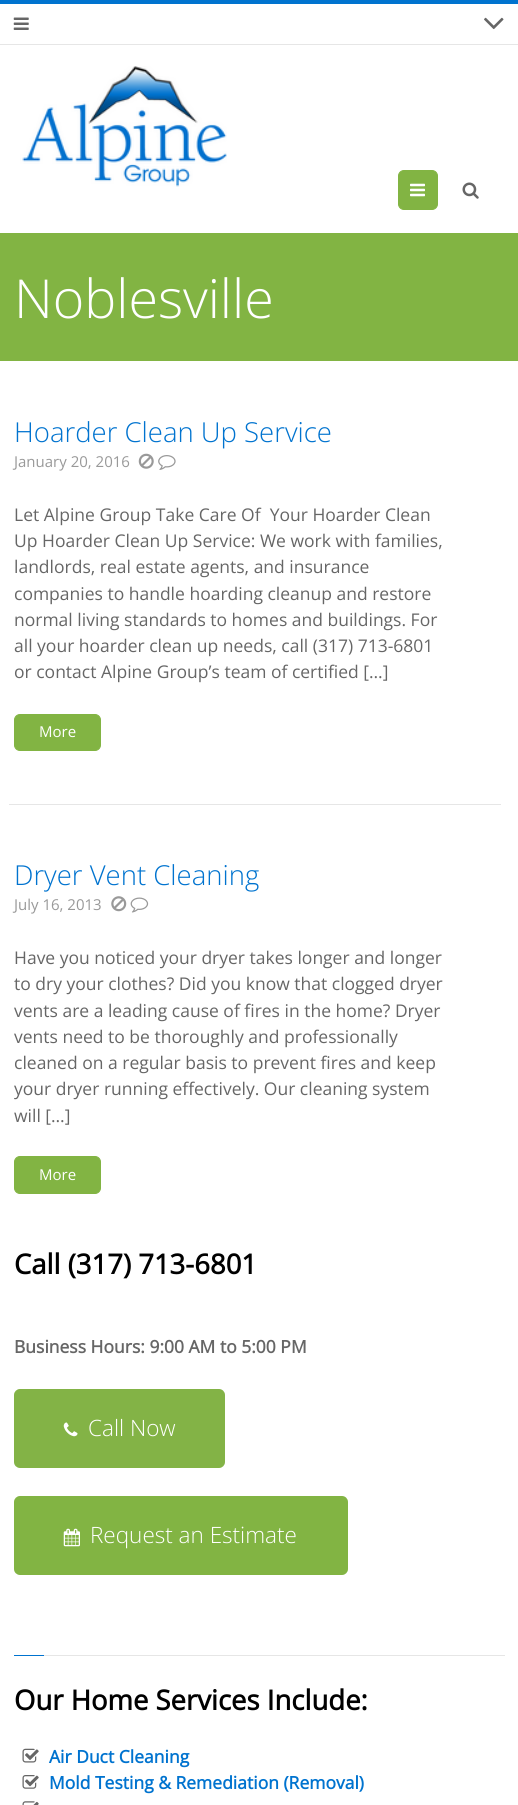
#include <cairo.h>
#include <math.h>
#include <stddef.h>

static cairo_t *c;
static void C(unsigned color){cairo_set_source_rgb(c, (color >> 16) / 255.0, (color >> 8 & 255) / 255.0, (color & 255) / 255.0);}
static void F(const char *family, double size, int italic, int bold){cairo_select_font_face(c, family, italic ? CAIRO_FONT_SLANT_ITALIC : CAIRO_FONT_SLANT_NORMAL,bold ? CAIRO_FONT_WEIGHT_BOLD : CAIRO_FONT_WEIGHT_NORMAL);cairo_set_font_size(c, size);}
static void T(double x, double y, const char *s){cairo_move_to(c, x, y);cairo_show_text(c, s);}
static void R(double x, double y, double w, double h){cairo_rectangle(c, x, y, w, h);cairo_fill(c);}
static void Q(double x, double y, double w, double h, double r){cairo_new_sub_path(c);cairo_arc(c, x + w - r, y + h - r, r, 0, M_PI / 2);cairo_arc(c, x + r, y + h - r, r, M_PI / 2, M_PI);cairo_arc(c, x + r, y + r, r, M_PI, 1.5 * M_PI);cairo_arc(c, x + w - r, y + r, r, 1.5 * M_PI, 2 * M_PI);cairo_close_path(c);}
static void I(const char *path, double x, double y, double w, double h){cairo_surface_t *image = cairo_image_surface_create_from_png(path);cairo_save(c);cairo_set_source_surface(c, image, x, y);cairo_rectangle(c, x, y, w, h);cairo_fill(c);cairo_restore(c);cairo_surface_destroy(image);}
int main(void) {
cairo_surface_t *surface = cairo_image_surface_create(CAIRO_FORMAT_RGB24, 518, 1805);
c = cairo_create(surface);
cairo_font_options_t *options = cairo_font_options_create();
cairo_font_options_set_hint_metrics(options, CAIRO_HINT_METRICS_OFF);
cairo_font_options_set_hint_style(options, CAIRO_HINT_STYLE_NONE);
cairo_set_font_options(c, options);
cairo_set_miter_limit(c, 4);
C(0xffffff);
cairo_paint(c);
C(0x0073cf);
R(0,0,518,4);
C(0xe6e6e6);
R(0,44,518,1);
I("1.png",13,17,16,13);
I("2.png",484,17,20,13);
I("3.png",20,66,207,121);
C(0x82b443);
Q(398.5,170.5,39,39,5.5);
cairo_fill_preserve(c);
cairo_set_line_width(c,1);
cairo_stroke(c);
I("4.png",410,183,15,14);
I("5.png",462,182,17,17);
R(0,233,518,128);
F("Open Sans Light",53.75,0,0);
C(0xffffff);
T(14,318,"Noblesville");
F("Open Sans Light",27.5,0,0);
C(0x0073cf);
T(14,442,"Hoarder Clean Up Service");
F("Open Sans",15,0,0);
C(0x999999);
T(14,467,"January 20, 2016");
I("6.png",138,453,38,17);
F("Open Sans",17.5,0,0);
C(0x666666);
T(14,521,"Let Alpine Group Take Care Of  Your Hoarder Clean");
T(14,547,"Up Hoarder Clean Up Service: We work with families,");
T(14,573,"landlords, real estate agents, and insurance");
T(14,600,"companies to handle hoarding cleanup and restore");
T(14,626,"normal living standards to homes and buildings. For");
T(14,652,"all your hoarder clean up needs, call (317) 713-6801");
T(14,678,"or contact Alpine Group’s team of certified […]");
C(0x82b443);
Q(14.5,714.5,86,36,5.5);
cairo_fill_preserve(c);
cairo_stroke(c);
F("Open Sans",15,0,0);
C(0xffffff);
T(39,737,"More");
C(0xe6e6e6);
R(9,804,492,1);
F("Open Sans Light",27.5,0,0);
C(0x0073cf);
T(14,885,"Dryer Vent Cleaning");
F("Open Sans",15,0,0);
C(0x999999);
T(14,910,"July 16, 2013");
I("7.png",111,896,38,17);
F("Open Sans",17.5,0,0);
C(0x666666);
T(14,964,"Have you noticed your dryer takes longer and longer");
T(14,990,"to dry your clothes? Did you know that clogged dryer");
T(14,1017,"vents are a leading cause of fires in the home? Dryer");
T(14,1043,"vents need to be thoroughly and professionally");
T(14,1069,"cleaned on a regular basis to prevent fires and keep");
T(14,1095,"your dryer running effectively. Our cleaning system");
T(14,1122,"will […]");
C(0x82b443);
Q(14.5,1156.5,86,37,5.5);
cairo_fill_preserve(c);
cairo_stroke(c);
F("Open Sans",15,0,0);
C(0xffffff);
T(39,1180,"More");
F("Open Sans",27.5,0,1);
C(0x000000);
T(14,1274,"Call (317) 713-6801");
F("Open Sans",17.5,0,1);
C(0x666666);
T(14,1353,"Business Hours: 9:00 AM to 5:00 PM");
C(0x83b346);
Q(16,1391,207,75,4);
cairo_fill_preserve(c);
cairo_set_line_width(c,4);
cairo_stroke(c);
I("8.png",63,1422,15,15);
F("Open Sans Light",22.5,0,0);
C(0xffffff);
T(88,1436,"Call Now");
C(0x82b443);
Q(16,1498,330,75,4);
cairo_fill_preserve(c);
cairo_stroke(c);
I("9.png",63,1528,17,19);
C(0xffffff);
T(90,1543,"Request an Estimate");
C(0xe6e6e6);
R(44,1655,461,1);
C(0x0073cf);
R(14,1655,30,1);
F("Open Sans",27.5,0,1);
C(0x000000);
T(14,1710,"Our Home Services Include:");
I("10.png",22,1748,17,15);
F("Open Sans",17.5,0,1);
C(0x0073cf);
T(49,1763,"Air Duct Cleaning");
I("11.png",22,1775,17,14);
T(49,1789,"Mold Testing & Remediation (Removal)");
I("12.png",22,1801,17,4);
cairo_surface_write_to_png(surface, "o.png");
cairo_font_options_destroy(options);
cairo_destroy(c);
cairo_surface_destroy(surface);
return 0;
}
